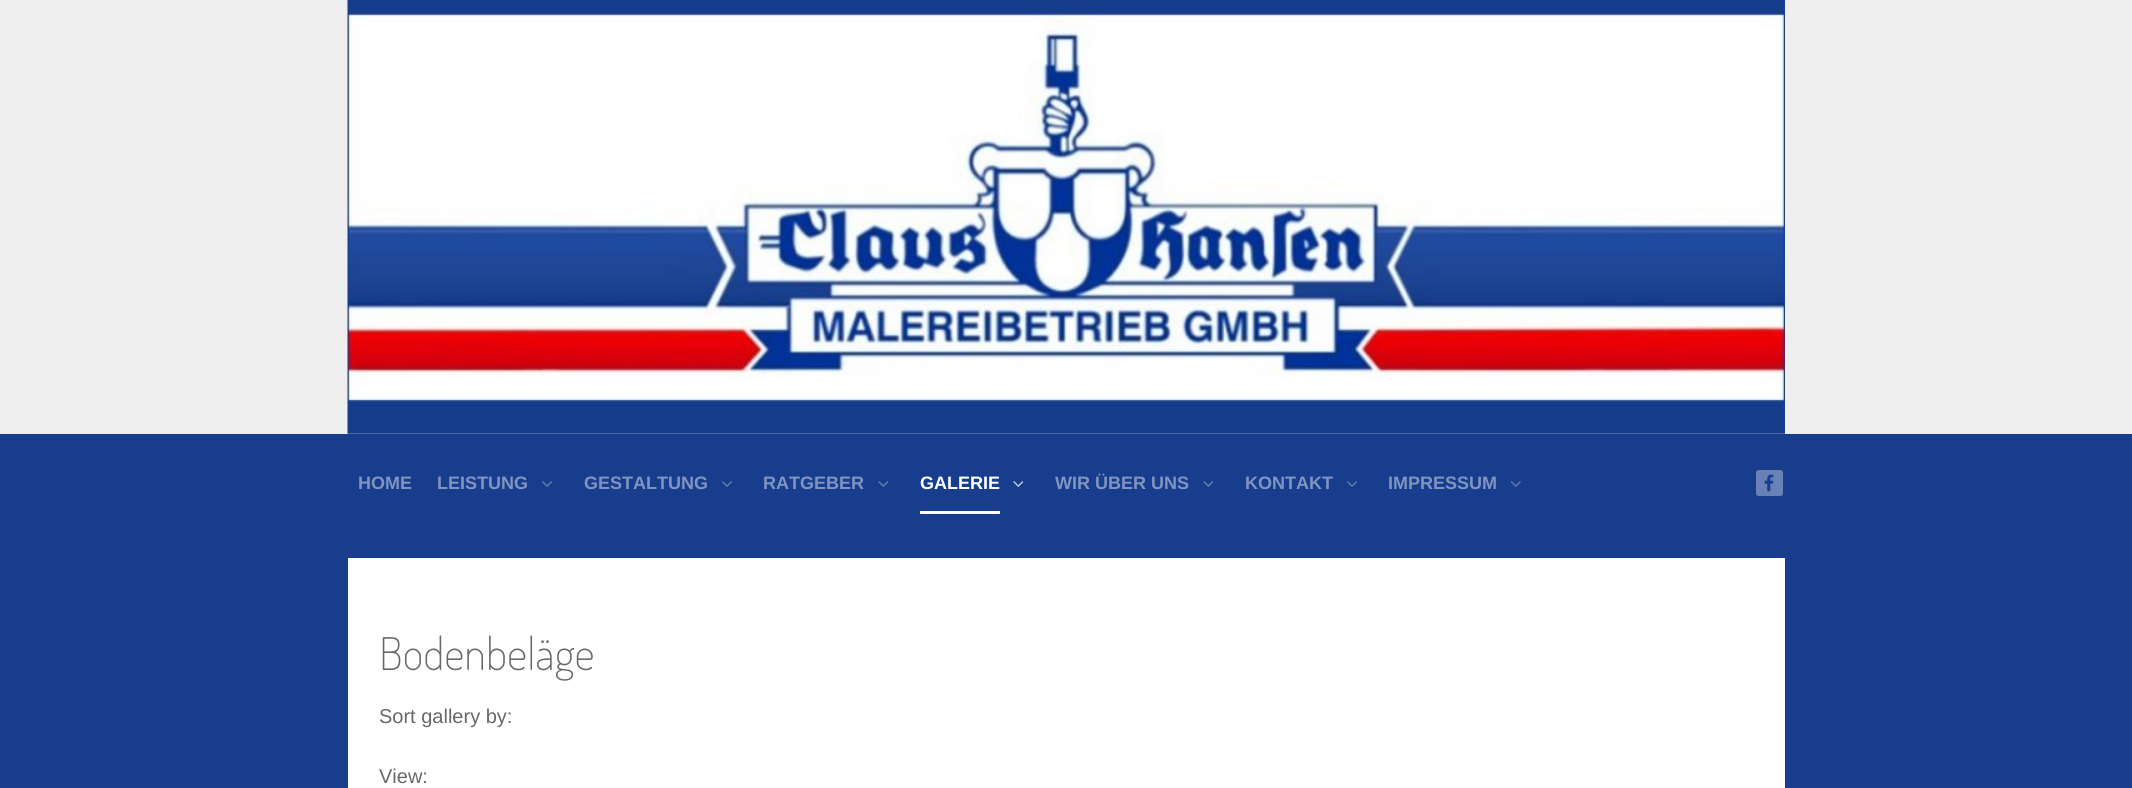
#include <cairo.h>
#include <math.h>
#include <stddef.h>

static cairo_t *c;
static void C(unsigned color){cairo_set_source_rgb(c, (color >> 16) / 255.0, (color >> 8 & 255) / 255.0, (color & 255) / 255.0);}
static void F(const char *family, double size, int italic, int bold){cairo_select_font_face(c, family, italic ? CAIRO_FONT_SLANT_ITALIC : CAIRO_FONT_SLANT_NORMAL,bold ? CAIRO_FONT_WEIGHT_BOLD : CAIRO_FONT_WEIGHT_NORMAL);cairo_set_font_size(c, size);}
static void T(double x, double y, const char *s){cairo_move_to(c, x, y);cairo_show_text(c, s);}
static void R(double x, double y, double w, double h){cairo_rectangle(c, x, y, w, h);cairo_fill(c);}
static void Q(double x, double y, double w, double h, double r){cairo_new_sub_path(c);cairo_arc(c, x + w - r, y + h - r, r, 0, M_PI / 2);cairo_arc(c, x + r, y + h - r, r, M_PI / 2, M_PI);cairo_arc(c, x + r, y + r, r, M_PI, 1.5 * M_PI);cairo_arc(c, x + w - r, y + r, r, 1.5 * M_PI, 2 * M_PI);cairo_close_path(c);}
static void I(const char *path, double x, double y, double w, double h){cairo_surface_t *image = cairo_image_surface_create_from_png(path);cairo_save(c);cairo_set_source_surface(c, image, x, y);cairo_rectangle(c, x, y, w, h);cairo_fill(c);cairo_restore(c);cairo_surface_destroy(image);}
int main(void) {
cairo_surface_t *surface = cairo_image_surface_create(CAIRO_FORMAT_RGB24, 2132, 788);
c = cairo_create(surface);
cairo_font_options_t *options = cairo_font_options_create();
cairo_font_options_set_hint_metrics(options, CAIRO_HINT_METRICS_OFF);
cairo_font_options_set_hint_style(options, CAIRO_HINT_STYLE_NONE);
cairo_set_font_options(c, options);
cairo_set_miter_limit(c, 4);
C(0xeeeeee);
cairo_paint(c);
I("1.png",347,0,1438,434);
C(0x183d8d);
R(0,434,2132,354);
F("Liberation Sans",18,0,1);
C(0x8094c0);
T(358,489,"HOME");
T(437,489,"LEISTUNG");
I("2.png",542,481,10,6);
T(584,489,"GESTALTUNG");
I("2.png",722,481,10,6);
T(763,489,"RATGEBER");
I("3.png",878,481,11,6);
C(0xffffff);
T(920,489,"GALERIE");
R(920,511,80,3);
I("4.png",1013,481,11,6);
C(0x8094c0);
T(1055,489,"WIR ÜBER UNS");
I("3.png",1203,481,11,6);
T(1245,489,"KONTAKT");
I("2.png",1347,481,10,6);
T(1388,489,"IMPRESSUM");
I("5.png",1511,481,10,6);
C(0x6981b5);
Q(1756,470,27,26,2.5);
cairo_fill(c);
I("6.png",1764,474,10,18);
C(0xffffff);
R(348,558,1437,230);
F("Dosis ExtraLight",45,0,0);
C(0x686868);
T(379,670,"Bodenbeläge");
F("Liberation Sans",20,0,0);
T(379,723,"Sort gallery by:");
T(379,783,"View:");
cairo_surface_write_to_png(surface, "o.png");
cairo_font_options_destroy(options);
cairo_destroy(c);
cairo_surface_destroy(surface);
return 0;
}
